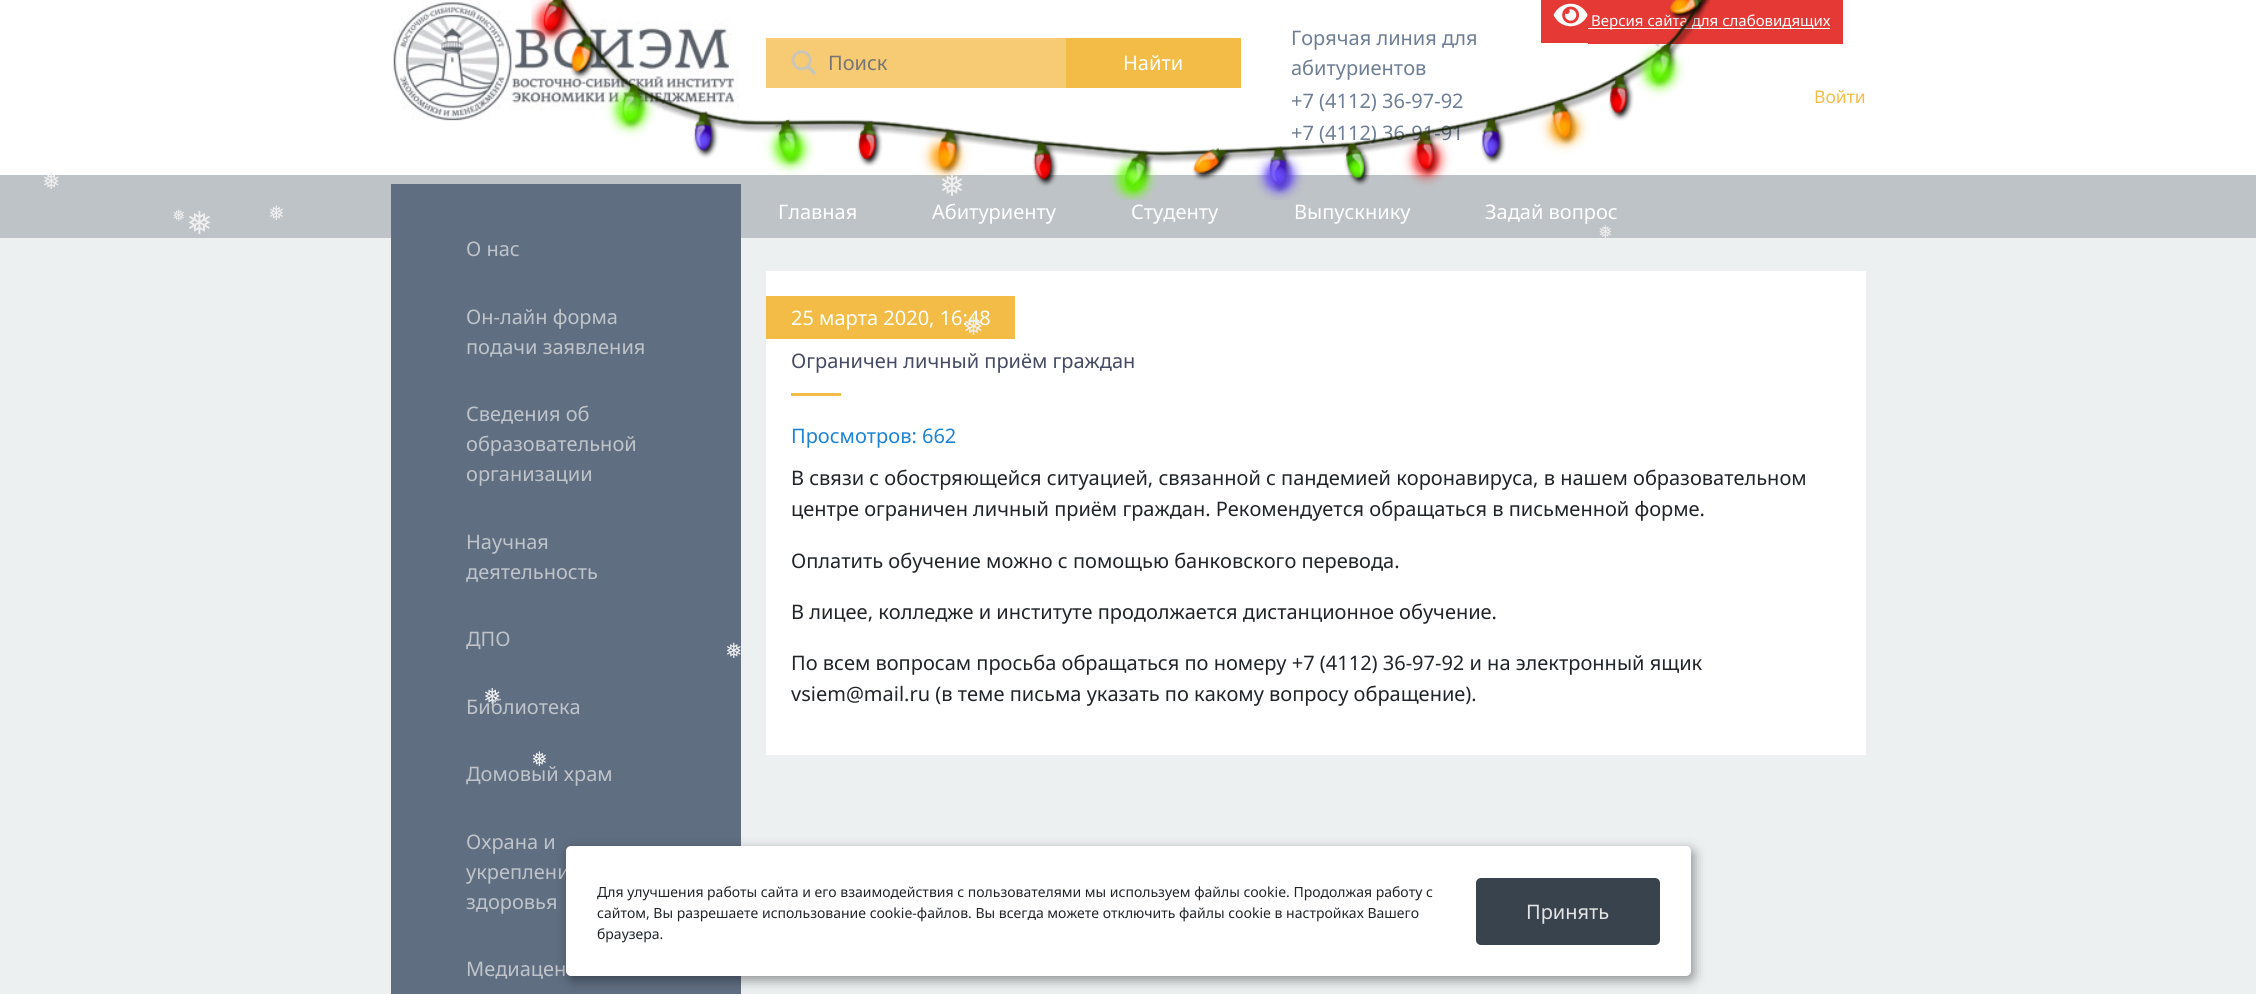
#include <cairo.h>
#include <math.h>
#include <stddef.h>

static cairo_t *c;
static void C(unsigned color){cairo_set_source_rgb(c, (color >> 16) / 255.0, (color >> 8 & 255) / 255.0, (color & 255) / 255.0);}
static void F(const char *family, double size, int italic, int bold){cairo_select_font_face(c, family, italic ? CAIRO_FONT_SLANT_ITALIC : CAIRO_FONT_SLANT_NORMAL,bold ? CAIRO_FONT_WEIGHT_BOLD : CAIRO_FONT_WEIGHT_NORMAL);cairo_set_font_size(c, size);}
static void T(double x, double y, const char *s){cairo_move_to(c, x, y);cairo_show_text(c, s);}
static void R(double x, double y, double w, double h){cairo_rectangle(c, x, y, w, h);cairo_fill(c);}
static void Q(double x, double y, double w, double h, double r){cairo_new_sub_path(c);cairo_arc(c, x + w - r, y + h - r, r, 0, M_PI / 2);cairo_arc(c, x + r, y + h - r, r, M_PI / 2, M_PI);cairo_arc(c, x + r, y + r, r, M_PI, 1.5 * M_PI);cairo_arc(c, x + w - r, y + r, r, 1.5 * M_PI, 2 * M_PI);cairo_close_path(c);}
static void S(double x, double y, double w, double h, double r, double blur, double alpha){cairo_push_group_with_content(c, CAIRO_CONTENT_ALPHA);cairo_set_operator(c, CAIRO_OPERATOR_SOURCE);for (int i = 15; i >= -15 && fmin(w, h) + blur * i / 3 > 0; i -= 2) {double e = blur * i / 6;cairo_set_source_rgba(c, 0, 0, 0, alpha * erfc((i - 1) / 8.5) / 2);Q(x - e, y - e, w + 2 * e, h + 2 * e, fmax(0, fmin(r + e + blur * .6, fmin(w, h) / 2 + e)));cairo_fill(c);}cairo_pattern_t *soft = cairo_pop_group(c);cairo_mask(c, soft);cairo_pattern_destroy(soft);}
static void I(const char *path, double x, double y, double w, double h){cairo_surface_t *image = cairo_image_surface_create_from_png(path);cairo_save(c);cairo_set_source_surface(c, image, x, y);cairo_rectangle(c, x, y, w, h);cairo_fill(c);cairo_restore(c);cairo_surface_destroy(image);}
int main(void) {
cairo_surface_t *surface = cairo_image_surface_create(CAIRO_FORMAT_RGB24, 2256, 994);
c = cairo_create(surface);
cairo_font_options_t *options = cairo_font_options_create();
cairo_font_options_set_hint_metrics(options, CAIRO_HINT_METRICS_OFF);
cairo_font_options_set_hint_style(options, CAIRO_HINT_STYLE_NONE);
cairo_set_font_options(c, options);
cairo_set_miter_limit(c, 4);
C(0xecf0f1);
cairo_paint(c);
C(0xffffff);
R(0,0,2256,175);
I("2.png",393,0,346,121);
C(0xe53935);
R(1541,0,47,43);
R(1588,0,255,44);
I("3.png",1553,3,35,24);
C(0xffffff);
R(1588,28,242,1);
F("Noto Sans",15,0,0);
T(1591,26,"Версия сайта для слабовидящих");
C(0xf6cb73);
R(766,38,300,50);
I("4.png",791,50,26,25);
F("Noto Sans",20,0,0);
C(0x757575);
T(828,70,"Поиск");
C(0xf3bc47);
R(1066,38,175,50);
C(0xffffff);
T(1123,70,"Найти");
C(0x6e7e95);
T(1291,45,"Горячая линия для");
T(1291,75,"абитуриентов");
T(1291,108,"+7 (4112) 36-97-92");
T(1291,140,"+7 (4112) 36-91-91");
C(0xbec3c7);
R(0,175,2256,63);
C(0x5f6e81);
R(391,184,350,810);
I("1.png",531,0,1180,200);
F("Noto Sans",17.5,0,0);
C(0xf3bc47);
T(1814,103,"Войти");
F("DejaVu Sans",22,0,0);
C(0xefefef);
T(42,189,"❅");
F("DejaVu Sans",31,0,0);
T(939,196,"❅");
F("DejaVu Sans",16,0,0);
T(172,221,"❅");
F("DejaVu Sans",32,0,0);
T(186,234,"❅");
F("DejaVu Sans",20,0,0);
T(268,220,"❅");
F("DejaVu Sans",17.5,0,0);
T(1598,238,"❅");
C(0xffffff);
R(766,271,1100,484);
C(0xf3bc47);
R(766,296,249,43);
F("Noto Sans",20,0,0);
C(0xffffff);
T(791,325,"25 марта 2020, 16:48");
F("DejaVu Sans",25,0,0);
C(0xefefef);
T(963,335,"❅");
F("DejaVu Sans",21,0,0);
T(725,658,"❅");
F("DejaVu Sans",22,0,0);
T(483,704,"❅");
F("DejaVu Sans",20,0,0);
T(531,766,"❅");
F("Noto Sans",20,0,0);
C(0xffffff);
T(778,219,"Главная");
T(932,219,"Абитуриенту");
T(1131,219,"Студенту");
T(1294,219,"Выпускнику");
T(1485,219,"Задай вопрос");
C(0xbfc4ca);
T(466,256,"О нас");
T(466,324,"Он-лайн форма");
T(466,354,"подачи заявления");
T(466,421,"Сведения об");
T(466,451,"образовательной");
T(466,481,"организации");
T(466,549,"Научная");
T(466,579,"деятельность");
T(466,646,"ДПО");
T(466,714,"Библиотека");
T(466,781,"Домовый храм");
T(466,849,"Охрана и");
T(466,879,"укреплени");
T(466,909,"здоровья");
T(466,976,"Медиацен");
C(0x454b63);
T(791,368,"Ограничен личный приём граждан");
C(0xf3bc47);
R(791,393,50,3);
C(0x1d83d5);
T(791,443,"Просмотров: 662");
C(0x212529);
T(791,485,"В связи с обостряющейся ситуацией, связанной с пандемией коронавируса, в нашем образовательном");
T(791,516,"центре ограничен личный приём граждан. Рекомендуется обращаться в письменной форме.");
T(791,568,"Оплатить обучение можно с помощью банковского перевода.");
T(791,619,"В лицее, колледже и институте продолжается дистанционное обучение.");
T(791,670,"По всем вопросам просьба обращаться по номеру +7 (4112) 36-97-92 и на электронный ящик");
T(791,701,"vsiem@mail.ru (в теме письма указать по какому вопросу обращение).");
C(0x000000);
S(569,850,1125,130,5,6,.4);
C(0xffffff);
Q(566,846,1125,130,5);
cairo_fill(c);
F("Noto Sans",14,0,0);
C(0x212529);
T(597,897,"Для улучшения работы сайта и его взаимодействия с пользователями мы используем файлы cookie. Продолжая работу с");
T(597,918,"сайтом, Вы разрешаете использование cookie-файлов. Вы всегда можете отключить файлы cookie в настройках Вашего");
T(597,939,"браузера.");
C(0x39434e);
Q(1476,878,184,67,5);
cairo_fill(c);
F("Noto Sans",20,0,0);
C(0xe5e5e5);
T(1526,919,"Принять");
cairo_surface_write_to_png(surface, "o.png");
cairo_font_options_destroy(options);
cairo_destroy(c);
cairo_surface_destroy(surface);
return 0;
}
